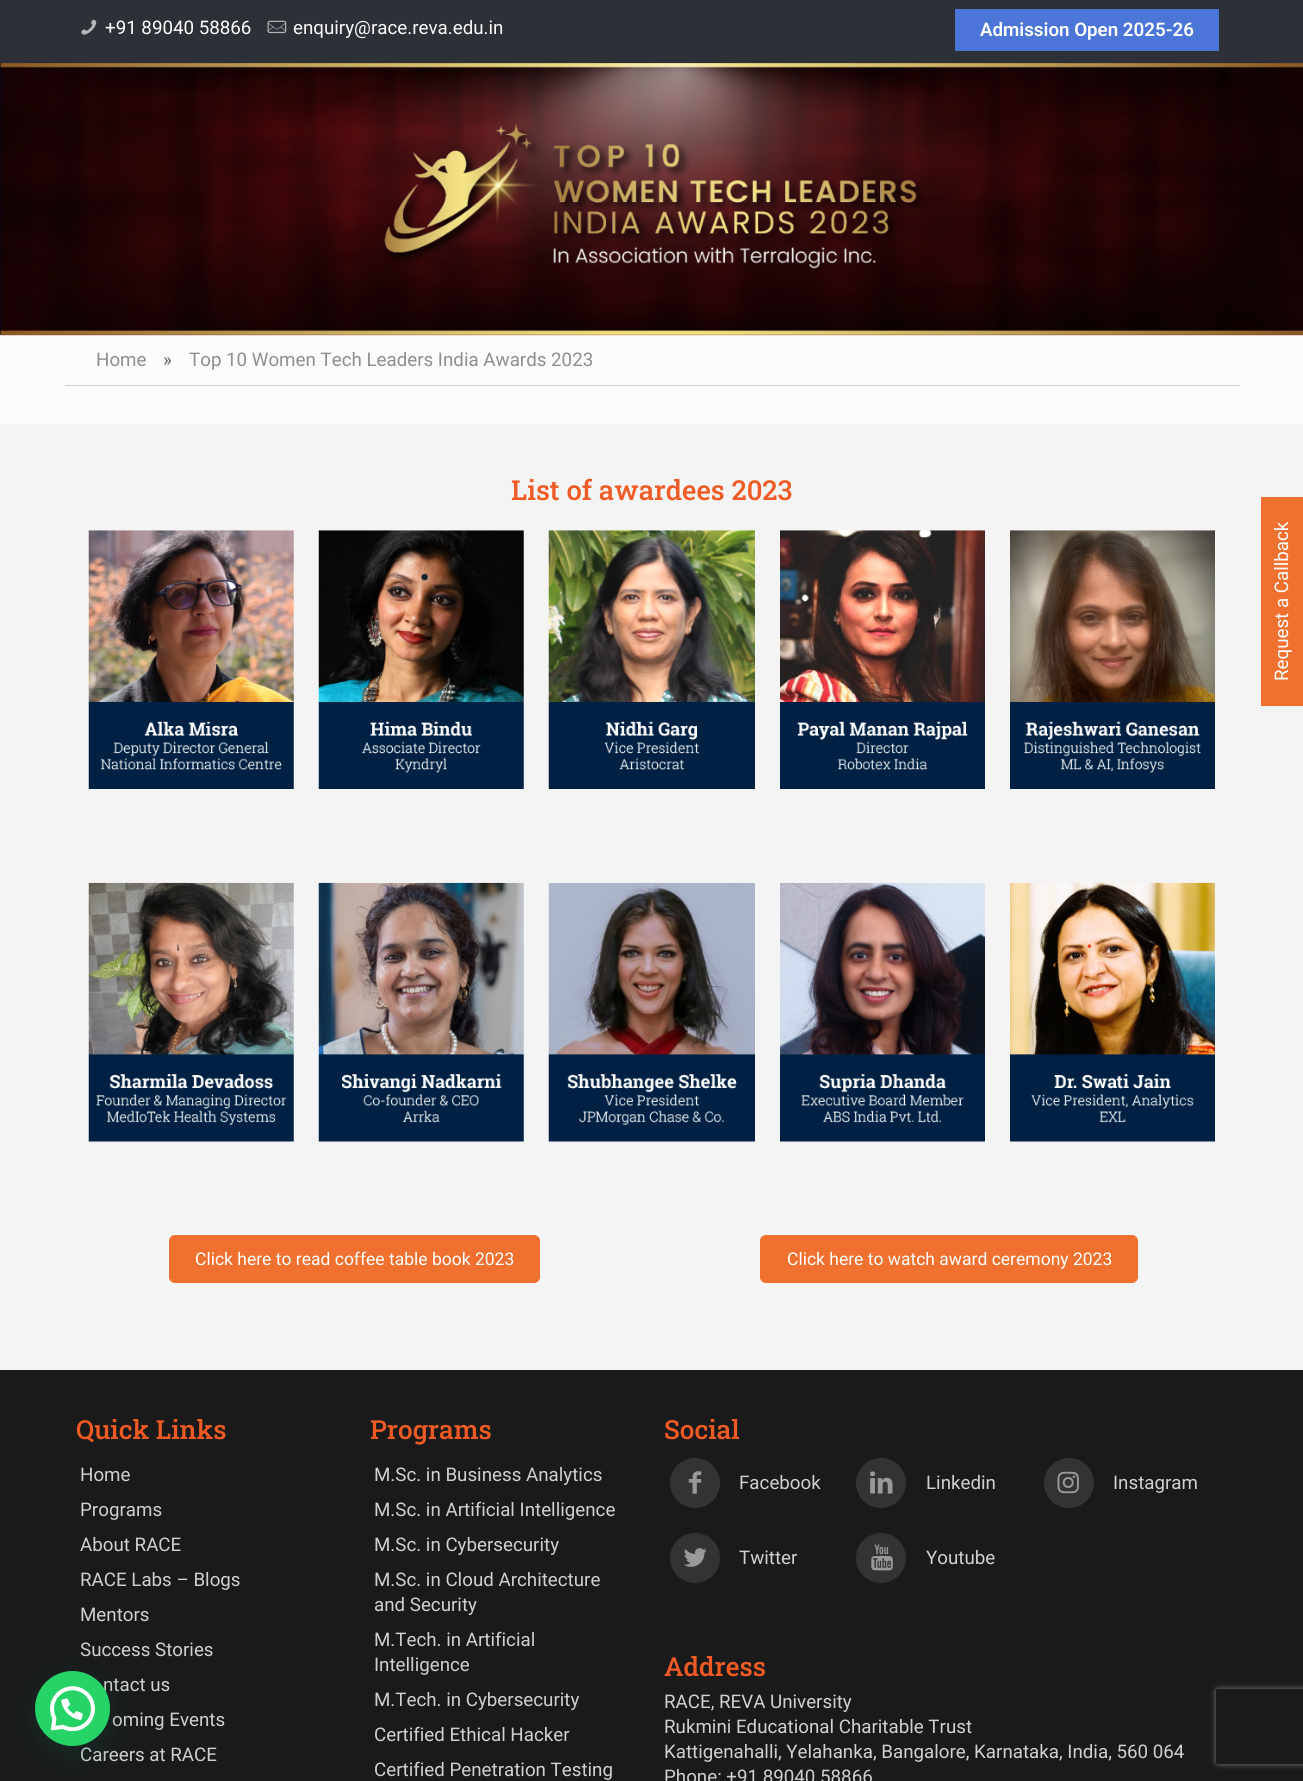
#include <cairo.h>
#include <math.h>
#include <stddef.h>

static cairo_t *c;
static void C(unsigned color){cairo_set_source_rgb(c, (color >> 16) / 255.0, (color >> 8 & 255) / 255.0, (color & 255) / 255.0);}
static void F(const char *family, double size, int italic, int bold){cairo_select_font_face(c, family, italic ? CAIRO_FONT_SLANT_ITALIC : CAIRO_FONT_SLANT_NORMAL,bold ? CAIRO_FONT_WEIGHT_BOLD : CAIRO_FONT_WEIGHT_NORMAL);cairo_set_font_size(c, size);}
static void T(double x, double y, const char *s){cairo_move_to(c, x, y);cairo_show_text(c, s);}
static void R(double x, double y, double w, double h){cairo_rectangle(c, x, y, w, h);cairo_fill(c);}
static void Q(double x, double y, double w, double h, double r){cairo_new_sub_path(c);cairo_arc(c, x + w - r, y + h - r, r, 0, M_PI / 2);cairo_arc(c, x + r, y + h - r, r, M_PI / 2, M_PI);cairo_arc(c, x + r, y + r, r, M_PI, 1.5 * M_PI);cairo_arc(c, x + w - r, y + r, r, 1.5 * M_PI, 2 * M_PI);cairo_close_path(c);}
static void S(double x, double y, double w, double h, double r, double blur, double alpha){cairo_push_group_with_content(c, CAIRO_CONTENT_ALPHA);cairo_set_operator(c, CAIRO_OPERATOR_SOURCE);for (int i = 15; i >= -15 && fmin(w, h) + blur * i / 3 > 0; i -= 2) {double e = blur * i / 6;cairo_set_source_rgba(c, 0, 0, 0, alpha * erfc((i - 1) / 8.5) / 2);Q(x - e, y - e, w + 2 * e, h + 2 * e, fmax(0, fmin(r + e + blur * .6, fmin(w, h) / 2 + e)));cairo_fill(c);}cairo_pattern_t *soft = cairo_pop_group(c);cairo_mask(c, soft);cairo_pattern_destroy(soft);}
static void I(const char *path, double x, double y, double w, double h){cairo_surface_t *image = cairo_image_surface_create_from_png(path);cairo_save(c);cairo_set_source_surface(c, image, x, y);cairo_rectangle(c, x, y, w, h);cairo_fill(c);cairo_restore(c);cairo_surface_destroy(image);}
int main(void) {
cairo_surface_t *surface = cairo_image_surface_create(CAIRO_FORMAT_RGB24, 1303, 1781);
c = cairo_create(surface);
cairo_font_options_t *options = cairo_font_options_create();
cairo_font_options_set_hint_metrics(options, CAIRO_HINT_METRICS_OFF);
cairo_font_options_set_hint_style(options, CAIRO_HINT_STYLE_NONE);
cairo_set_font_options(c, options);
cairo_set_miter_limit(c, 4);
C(0xfcfcfc);
cairo_paint(c);
C(0x000119);
R(0,63,1303,272);
C(0xffffff);
R(0,0,1303,63);
C(0xf6851e);
R(420,19,1,30);
C(0xa6a7ac);
cairo_new_path(c);
cairo_move_to(c,396,31);
cairo_line_to(c,409,31);
cairo_line_to(c,402.5,37.5);
cairo_close_path(c);
cairo_fill(c);
C(0xf6851e);
R(573,19,1,30);
C(0xa6a7ac);
cairo_new_path(c);
cairo_move_to(c,549,31);
cairo_line_to(c,561,31);
cairo_line_to(c,555,37.5);
cairo_close_path(c);
cairo_fill(c);
C(0xf6851e);
R(686,19,1,30);
R(796,19,1,30);
R(901,19,1,30);
C(0xf69c7c);
cairo_new_path(c);
cairo_move_to(c,877.5,31);
cairo_line_to(c,890,31);
cairo_line_to(c,884,37.5);
cairo_close_path(c);
cairo_fill(c);
C(0xf6851e);
R(991,19,1,30);
R(1114,19,1,30);
I("3.png",0,62,1303,274);
cairo_set_source_rgba(c,0.161,0.169,0.2,0.97);
R(0,0,1303,63);
I("1.png",81,19,16,16);
F("Roboto",18.75,0,0);
C(0xffffff);
T(105,34,"+91 89040 58866");
I("2.png",267,20,20,14);
C(0xf9f9f9);
T(293,34,"enquiry@race.reva.edu.in");
cairo_set_source_rgba(c,0.298,0.475,0.863,0.97);
cairo_rectangle(c,955.5,9.5,263,41);
cairo_fill_preserve(c);
C(0x4973d1);
cairo_set_line_width(c,1);
cairo_stroke(c);
F("Roboto SemiBold",18.75,0,0);
C(0xffffff);
T(980,36,"Admission Open 2025-26");
C(0xcccccc);
R(65,385,1175,1);
F("Roboto",18.75,0,0);
C(0x8e8e8e);
T(96,366,"Home");
C(0x626262);
T(163,366,"»");
C(0x8e8e8e);
T(189,366,"Top 10 Women Tech Leaders India Awards 2023");
C(0xf4f4f4);
R(0,424,1303,946);
F("Roboto Slab Medium",27.5,0,0);
C(0xf05a24);
T(511,500,"List of awardees 2023");
I("4.png",88,530,206,259);
I("5.png",318,530,206,259);
I("6.png",548,530,207,259);
I("7.png",780,530,205,259);
I("8.png",1010,530,205,259);
I("9.png",88,882,206,260);
I("10.png",318,882,206,260);
I("11.png",548,882,207,260);
I("12.png",780,882,205,260);
I("13.png",1010,882,205,260);
C(0xf0712f);
Q(169.5,1235.5,370,47,5.5);
cairo_fill_preserve(c);
cairo_stroke(c);
F("Roboto",17.5,0,0);
C(0xffffff);
T(195,1265,"Click here to read coffee table book 2023");
C(0xf0712f);
Q(760.5,1235.5,377,47,5.5);
cairo_fill_preserve(c);
cairo_stroke(c);
C(0xffffff);
T(787,1265,"Click here to watch award ceremony 2023");
C(0xf0712f);
R(1261,497,42,209);
F("Roboto",18.75,0,0);
C(0xffffff);
cairo_save(c);
cairo_translate(c,1288,681);
cairo_rotate(c,-90 * M_PI / 180);
T(0,0,"Request a Callback");
cairo_restore(c);
C(0x1a1a1a);
R(0,1370,1303,411);
F("Roboto Slab Medium",26.25,0,0);
C(0xf05a24);
T(76,1439,"Quick Links");
F("Roboto",18.75,0,0);
C(0xd0d0d0);
T(80,1481,"Home");
T(80,1516,"Programs");
T(80,1551,"About RACE");
T(80,1586,"RACE Labs – Blogs");
T(80,1621,"Mentors");
T(80,1656,"Success Stories");
T(103,1691,"ntact us");
T(112,1726,"oming Events");
T(80,1761,"Careers at RACE");
F("Roboto Slab Medium",26.25,0,0);
C(0xf05a24);
T(370,1439,"Programs");
F("Roboto",18.75,0,0);
C(0xd0d0d0);
T(374,1481,"M.Sc. in Business Analytics");
T(374,1516,"M.Sc. in Artificial Intelligence");
T(374,1551,"M.Sc. in Cybersecurity");
T(374,1586,"M.Sc. in Cloud Architecture");
T(374,1611,"and Security");
T(374,1646,"M.Tech. in Artificial");
T(374,1671,"Intelligence");
T(374,1706,"M.Tech. in Cybersecurity");
T(374,1741,"Certified Ethical Hacker");
T(374,1776,"Certified Penetration Testing");
F("Roboto Slab Medium",26.25,0,0);
C(0xf05a24);
T(664,1439,"Social");
C(0x333333);
cairo_new_path(c);
cairo_arc(c,695,1483,25,0,2 * M_PI);
cairo_fill(c);
I("14.png",688,1471,14,23);
F("Roboto",18.75,0,0);
C(0xd0d0d0);
T(739,1489,"Facebook");
C(0x333333);
cairo_new_path(c);
cairo_arc(c,881,1483,25,0,2 * M_PI);
cairo_fill(c);
I("15.png",870,1471,23,23);
C(0xd0d0d0);
T(926,1489,"Linkedin");
C(0x333333);
cairo_new_path(c);
cairo_arc(c,1069,1483,25,0,2 * M_PI);
cairo_fill(c);
I("16.png",1057,1471,22,23);
C(0xd0d0d0);
T(1113,1489,"Instagram");
C(0x333333);
cairo_new_path(c);
cairo_arc(c,695,1558,25,0,2 * M_PI);
cairo_fill(c);
I("17.png",684,1548,23,19);
C(0xd0d0d0);
T(739,1564,"Twitter");
C(0x333333);
cairo_new_path(c);
cairo_arc(c,881,1558,25,0,2 * M_PI);
cairo_fill(c);
I("18.png",871,1544,22,27);
C(0xd0d0d0);
T(926,1564,"Youtube");
F("Roboto Slab Medium",26.25,0,0);
C(0xf05a24);
T(664,1676,"Address");
F("Roboto",18.75,0,0);
C(0xd0d0d0);
T(664,1708,"RACE, REVA University");
T(664,1733,"Rukmini Educational Charitable Trust");
T(664,1758,"Kattigenahalli, Yelahanka, Bangalore, Karnataka, India, 560 064");
T(664,1783,"Phone: +91 89040 58866");
C(0x075e54);
S(36,1679,75,75,37.5,15,.24);
C(0x25d366);
cairo_arc(c,72.5,1708.5,37.5,0,2 * M_PI);
cairo_fill(c);
I("19.png",50,1686,45,45);
cairo_save(c);
cairo_set_fill_rule(c,CAIRO_FILL_RULE_EVEN_ODD);
cairo_new_path(c);
cairo_move_to(c,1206,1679);
cairo_line_to(c,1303,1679);
cairo_line_to(c,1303,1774);
cairo_line_to(c,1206,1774);
cairo_close_path(c);
cairo_move_to(c,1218.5,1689);
cairo_line_to(c,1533.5,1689);
cairo_curve_to(c,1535,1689,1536,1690,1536,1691.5);
cairo_line_to(c,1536,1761.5);
cairo_curve_to(c,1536,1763,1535,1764,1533.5,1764);
cairo_line_to(c,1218.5,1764);
cairo_curve_to(c,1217,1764,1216,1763,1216,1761.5);
cairo_line_to(c,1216,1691.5);
cairo_curve_to(c,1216,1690,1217,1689,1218.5,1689);
cairo_close_path(c);
cairo_clip(c);
C(0x808080);
S(1216,1689,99,75,2.5,3,1);
cairo_restore(c);
cairo_surface_write_to_png(surface, "o.png");
cairo_font_options_destroy(options);
cairo_destroy(c);
cairo_surface_destroy(surface);
return 0;
}
